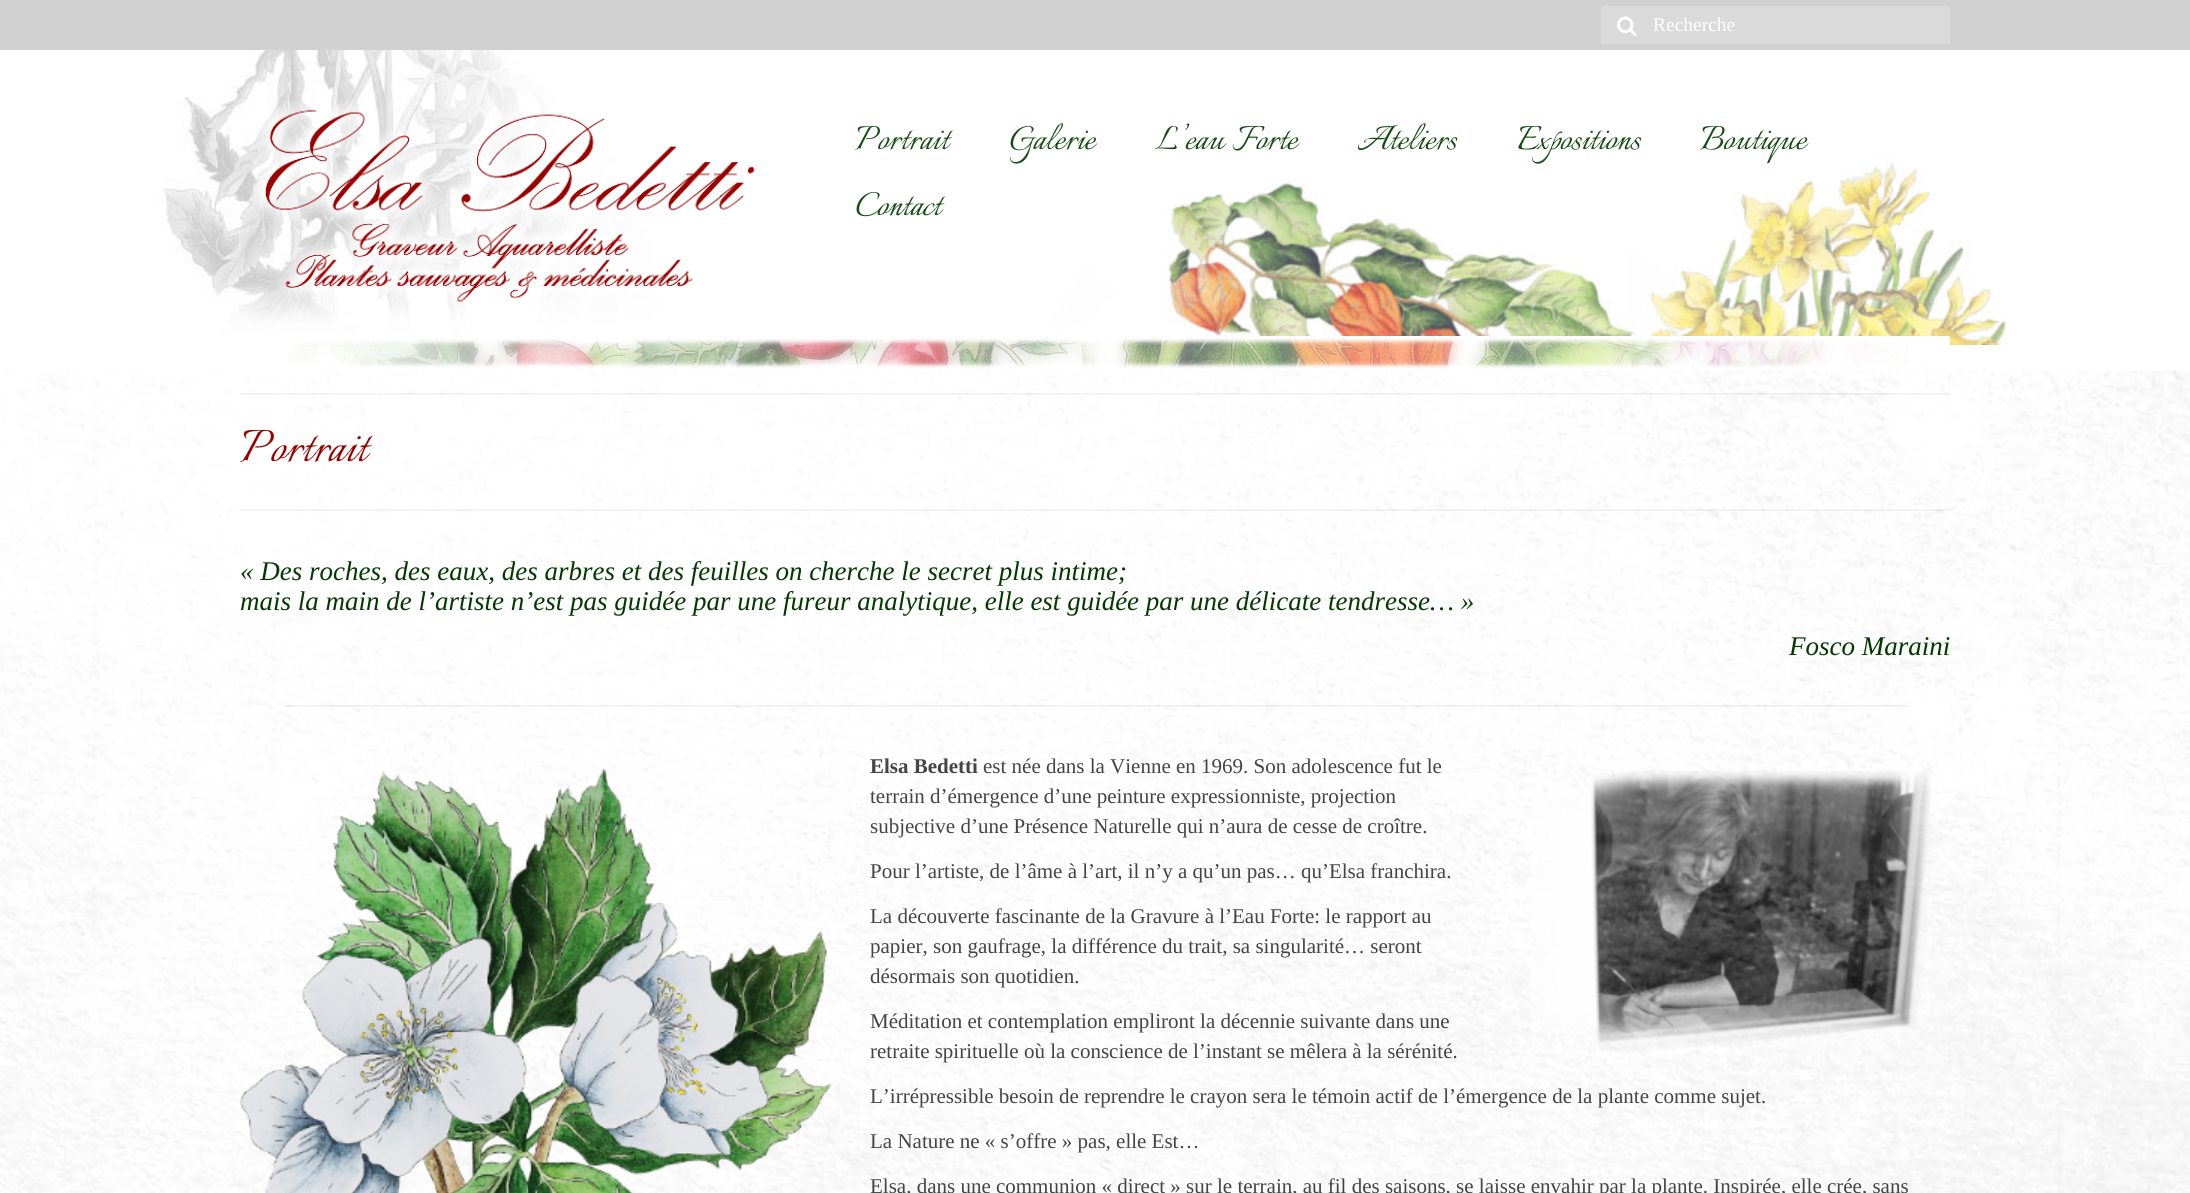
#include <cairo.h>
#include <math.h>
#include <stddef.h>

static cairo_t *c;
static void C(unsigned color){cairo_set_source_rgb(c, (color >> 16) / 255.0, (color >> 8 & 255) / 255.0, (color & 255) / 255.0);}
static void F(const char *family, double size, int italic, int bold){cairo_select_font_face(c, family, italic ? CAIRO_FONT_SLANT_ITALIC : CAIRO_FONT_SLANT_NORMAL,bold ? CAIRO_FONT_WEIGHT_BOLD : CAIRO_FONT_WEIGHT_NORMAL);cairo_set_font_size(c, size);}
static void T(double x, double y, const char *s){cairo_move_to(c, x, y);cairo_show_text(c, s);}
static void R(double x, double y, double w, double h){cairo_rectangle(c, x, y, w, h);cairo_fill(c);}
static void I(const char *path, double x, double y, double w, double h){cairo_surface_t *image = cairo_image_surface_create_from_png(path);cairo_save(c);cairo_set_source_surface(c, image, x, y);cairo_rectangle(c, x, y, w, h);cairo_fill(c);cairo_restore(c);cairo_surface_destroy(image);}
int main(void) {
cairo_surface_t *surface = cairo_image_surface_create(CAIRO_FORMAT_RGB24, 2190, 1193);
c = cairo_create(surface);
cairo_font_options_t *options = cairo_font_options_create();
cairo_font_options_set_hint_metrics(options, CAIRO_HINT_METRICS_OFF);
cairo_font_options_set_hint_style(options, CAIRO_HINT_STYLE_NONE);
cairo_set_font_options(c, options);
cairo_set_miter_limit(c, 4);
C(0xffffff);
cairo_paint(c);
I("1.png",159,50,1848,295);
C(0xd1d1d1);
R(0,0,2190,50);
C(0xdadada);
R(1601,6,349,38);
I("2.png",1617,16,20,20);
F("Liberation Serif",19.5,0,0);
C(0xffffff);
T(1653,31,"Recherche");
I("3.png",250,100,505,205);
F("Italianno",42,0,0);
C(0x124c10);
T(855,149,"Portrait");
T(1009,149,"Galerie");
T(1155,149,"L’eau Forte");
T(1357,149,"Ateliers");
T(1517,149,"Expositions");
T(1700,149,"Boutique");
T(855,215,"Contact");
I("4.png",288,336,1662,33);
I("5.png",0,370,2190,823);
cairo_set_source_rgba(c,0,0,0,0.05);
R(240,393,1710,2);
R(240,509,1710,2);
F("Italianno",57,0,0);
C(0x9a0000);
T(240,461,"Portrait");
F("Liberation Serif",27,1,0);
C(0x033800);
T(240,580,"« Des roches, des eaux, des arbres et des feuilles on cherche le secret plus intime;");
T(240,610,"mais la main de l’artiste n’est pas guidée par une fureur analytique, elle est guidée par une délicate tendresse… »");
T(1789,655,"Fosco Maraini");
cairo_set_source_rgba(c,0,0,0,0.05);
R(284,705,1624,2);
I("6.png",240,768,593,425);
F("Liberation Serif",21,0,1);
C(0x444444);
T(870,773,"Elsa Bedetti");
F("Liberation Serif",21,0,0);
T(983,773,"est née dans la Vienne en 1969. Son adolescence fut le");
T(870,803,"terrain d’émergence d’une peinture expressionniste, projection");
T(870,833,"subjective d’une Présence Naturelle qui n’aura de cesse de croître.");
I("7.png",1530,770,401,282);
T(870,878,"Pour l’artiste, de l’âme à l’art, il n’y a qu’un pas… qu’Elsa franchira.");
T(870,923,"La découverte fascinante de la Gravure à l’Eau Forte: le rapport au");
T(870,953,"papier, son gaufrage, la différence du trait, sa singularité… seront");
T(870,983,"désormais son quotidien.");
T(870,1028,"Méditation et contemplation empliront la décennie suivante dans une");
T(870,1058,"retraite spirituelle où la conscience de l’instant se mêlera à la sérénité.");
T(870,1103,"L’irrépressible besoin de reprendre le crayon sera le témoin actif de l’émergence de la plante comme sujet.");
T(870,1148,"La Nature ne « s’offre » pas, elle Est…");
T(870,1193,"Elsa, dans une communion « direct » sur le terrain, au fil des saisons, se laisse envahir par la plante. Inspirée, elle crée, sans");
cairo_surface_write_to_png(surface, "o.png");
cairo_font_options_destroy(options);
cairo_destroy(c);
cairo_surface_destroy(surface);
return 0;
}
